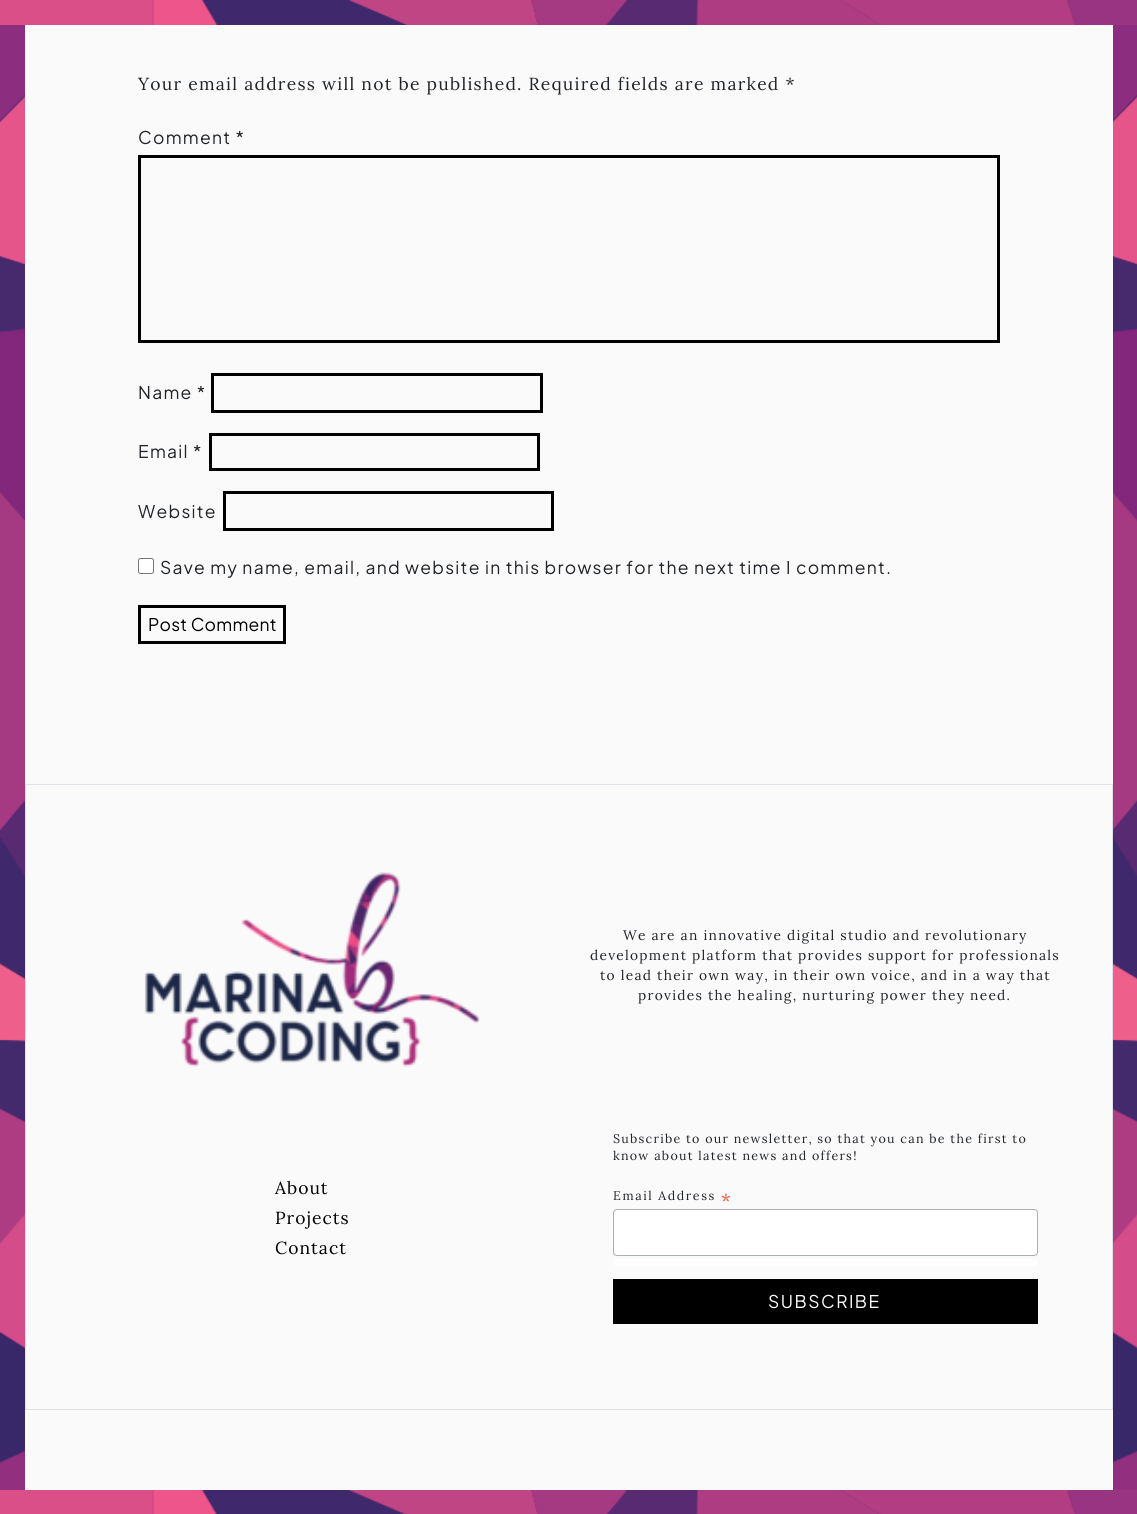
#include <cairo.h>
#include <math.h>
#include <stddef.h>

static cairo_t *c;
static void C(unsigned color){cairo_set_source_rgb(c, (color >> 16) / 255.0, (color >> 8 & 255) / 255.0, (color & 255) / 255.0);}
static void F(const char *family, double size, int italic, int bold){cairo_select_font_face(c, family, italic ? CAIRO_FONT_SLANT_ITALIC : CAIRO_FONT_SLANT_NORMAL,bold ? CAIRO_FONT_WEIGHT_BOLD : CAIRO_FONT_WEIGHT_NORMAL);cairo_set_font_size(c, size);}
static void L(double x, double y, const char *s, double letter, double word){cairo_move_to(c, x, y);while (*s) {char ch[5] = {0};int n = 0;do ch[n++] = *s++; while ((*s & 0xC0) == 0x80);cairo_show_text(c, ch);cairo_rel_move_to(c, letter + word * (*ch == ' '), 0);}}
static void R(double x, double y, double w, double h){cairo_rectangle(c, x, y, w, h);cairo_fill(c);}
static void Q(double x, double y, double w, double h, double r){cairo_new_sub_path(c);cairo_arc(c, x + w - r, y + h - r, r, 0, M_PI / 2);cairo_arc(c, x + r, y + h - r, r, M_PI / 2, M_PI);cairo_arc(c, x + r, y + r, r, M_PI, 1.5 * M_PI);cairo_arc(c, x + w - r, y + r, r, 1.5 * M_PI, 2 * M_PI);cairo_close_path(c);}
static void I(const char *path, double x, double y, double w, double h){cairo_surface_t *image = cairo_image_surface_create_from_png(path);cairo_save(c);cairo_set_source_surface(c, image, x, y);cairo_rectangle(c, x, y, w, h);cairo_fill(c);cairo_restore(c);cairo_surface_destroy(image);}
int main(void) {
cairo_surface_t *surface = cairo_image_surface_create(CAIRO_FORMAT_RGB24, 1137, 1514);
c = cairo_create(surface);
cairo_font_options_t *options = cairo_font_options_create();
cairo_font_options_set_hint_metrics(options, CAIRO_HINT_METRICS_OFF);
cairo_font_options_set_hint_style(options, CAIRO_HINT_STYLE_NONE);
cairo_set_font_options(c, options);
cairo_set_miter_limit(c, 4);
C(0xfbfafa);
cairo_paint(c);
I("1.png",0,0,1137,25);
I("2.png",0,25,25,1465);
F("Lora",17.5,0,0);
C(0x212529);
L(138,90,"Your email address will not be published. Required fields are marked *",1.25,0);
F("Plus Jakarta Sans",17.5,0,0);
L(138,144,"Comment *",1.25,0);
cairo_rectangle(c,139.5,156.5,859,185);
C(0x000000);
cairo_set_line_width(c,3);
cairo_stroke(c);
C(0x212529);
L(138,399,"Name *",1.25,0);
cairo_rectangle(c,212.5,374.5,329,37);
C(0x000000);
cairo_stroke(c);
C(0x212529);
L(138,458,"Email *",1.25,0);
cairo_rectangle(c,210.5,434.5,328,35);
C(0x000000);
cairo_stroke(c);
C(0x212529);
L(138,518,"Website",1.25,0);
cairo_rectangle(c,224.5,492.5,328,37);
C(0x000000);
cairo_stroke(c);
C(0xffffff);
Q(138.5,558.5,15,15,2);
cairo_fill_preserve(c);
C(0x767676);
cairo_set_line_width(c,1);
cairo_stroke(c);
C(0x212529);
L(160,574,"Save my name, email, and website in this browser for the next time I comment.",1.25,0);
cairo_rectangle(c,139.5,606.5,145,36);
C(0x000000);
cairo_set_line_width(c,3);
cairo_stroke(c);
L(148,631,"Post Comment",.25,0);
cairo_rectangle(c,25.5,784.5,1087,625);
C(0xdee2e6);
cairo_set_line_width(c,1);
cairo_stroke(c);
I("3.png",144,872,336,195);
F("Lora",13.75,0,0);
C(0x212529);
L(623,940,"We are an innovative digital studio and revolutionary",1.25,0);
L(590,960,"development platform that provides support for professionals",1.25,0);
L(600,980,"to lead their own way, in their own voice, and in a way that",1.25,0);
L(638,1000,"provides the healing, nurturing power they need.",1.25,0);
F("Lora",17.5,0,0);
C(0x000000);
L(275,1194,"About",1,0);
L(275,1224,"Projects",1,0);
L(275,1254,"Contact",1,0);
F("Lora",12.5,0,0);
C(0x212529);
L(613,1143,"Subscribe to our newsletter, so that you can be the first to",1.25,0);
L(613,1160,"know about latest news and offers!",1.25,0);
L(613,1200,"Email Address",1.6,0);
F("Lora",19,0,0);
C(0xe85c41);
L(721,1207,"*",1.6,0);
C(0xffffff);
Q(613.5,1209.5,424,46,3.5);
cairo_fill_preserve(c);
C(0xabb0b2);
cairo_stroke(c);
C(0xfefefe);
Q(613,1259,425,7,3.5);
cairo_fill(c);
C(0x000000);
R(613,1279,425,45);
F("Plus Jakarta Sans",17.5,0,0);
C(0xffffff);
L(768,1308,"SUBSCRIBE",1.5,0);
I("4.png",1113,25,24,1465);
I("5.png",0,1490,1137,24);
cairo_surface_write_to_png(surface, "o.png");
cairo_font_options_destroy(options);
cairo_destroy(c);
cairo_surface_destroy(surface);
return 0;
}
